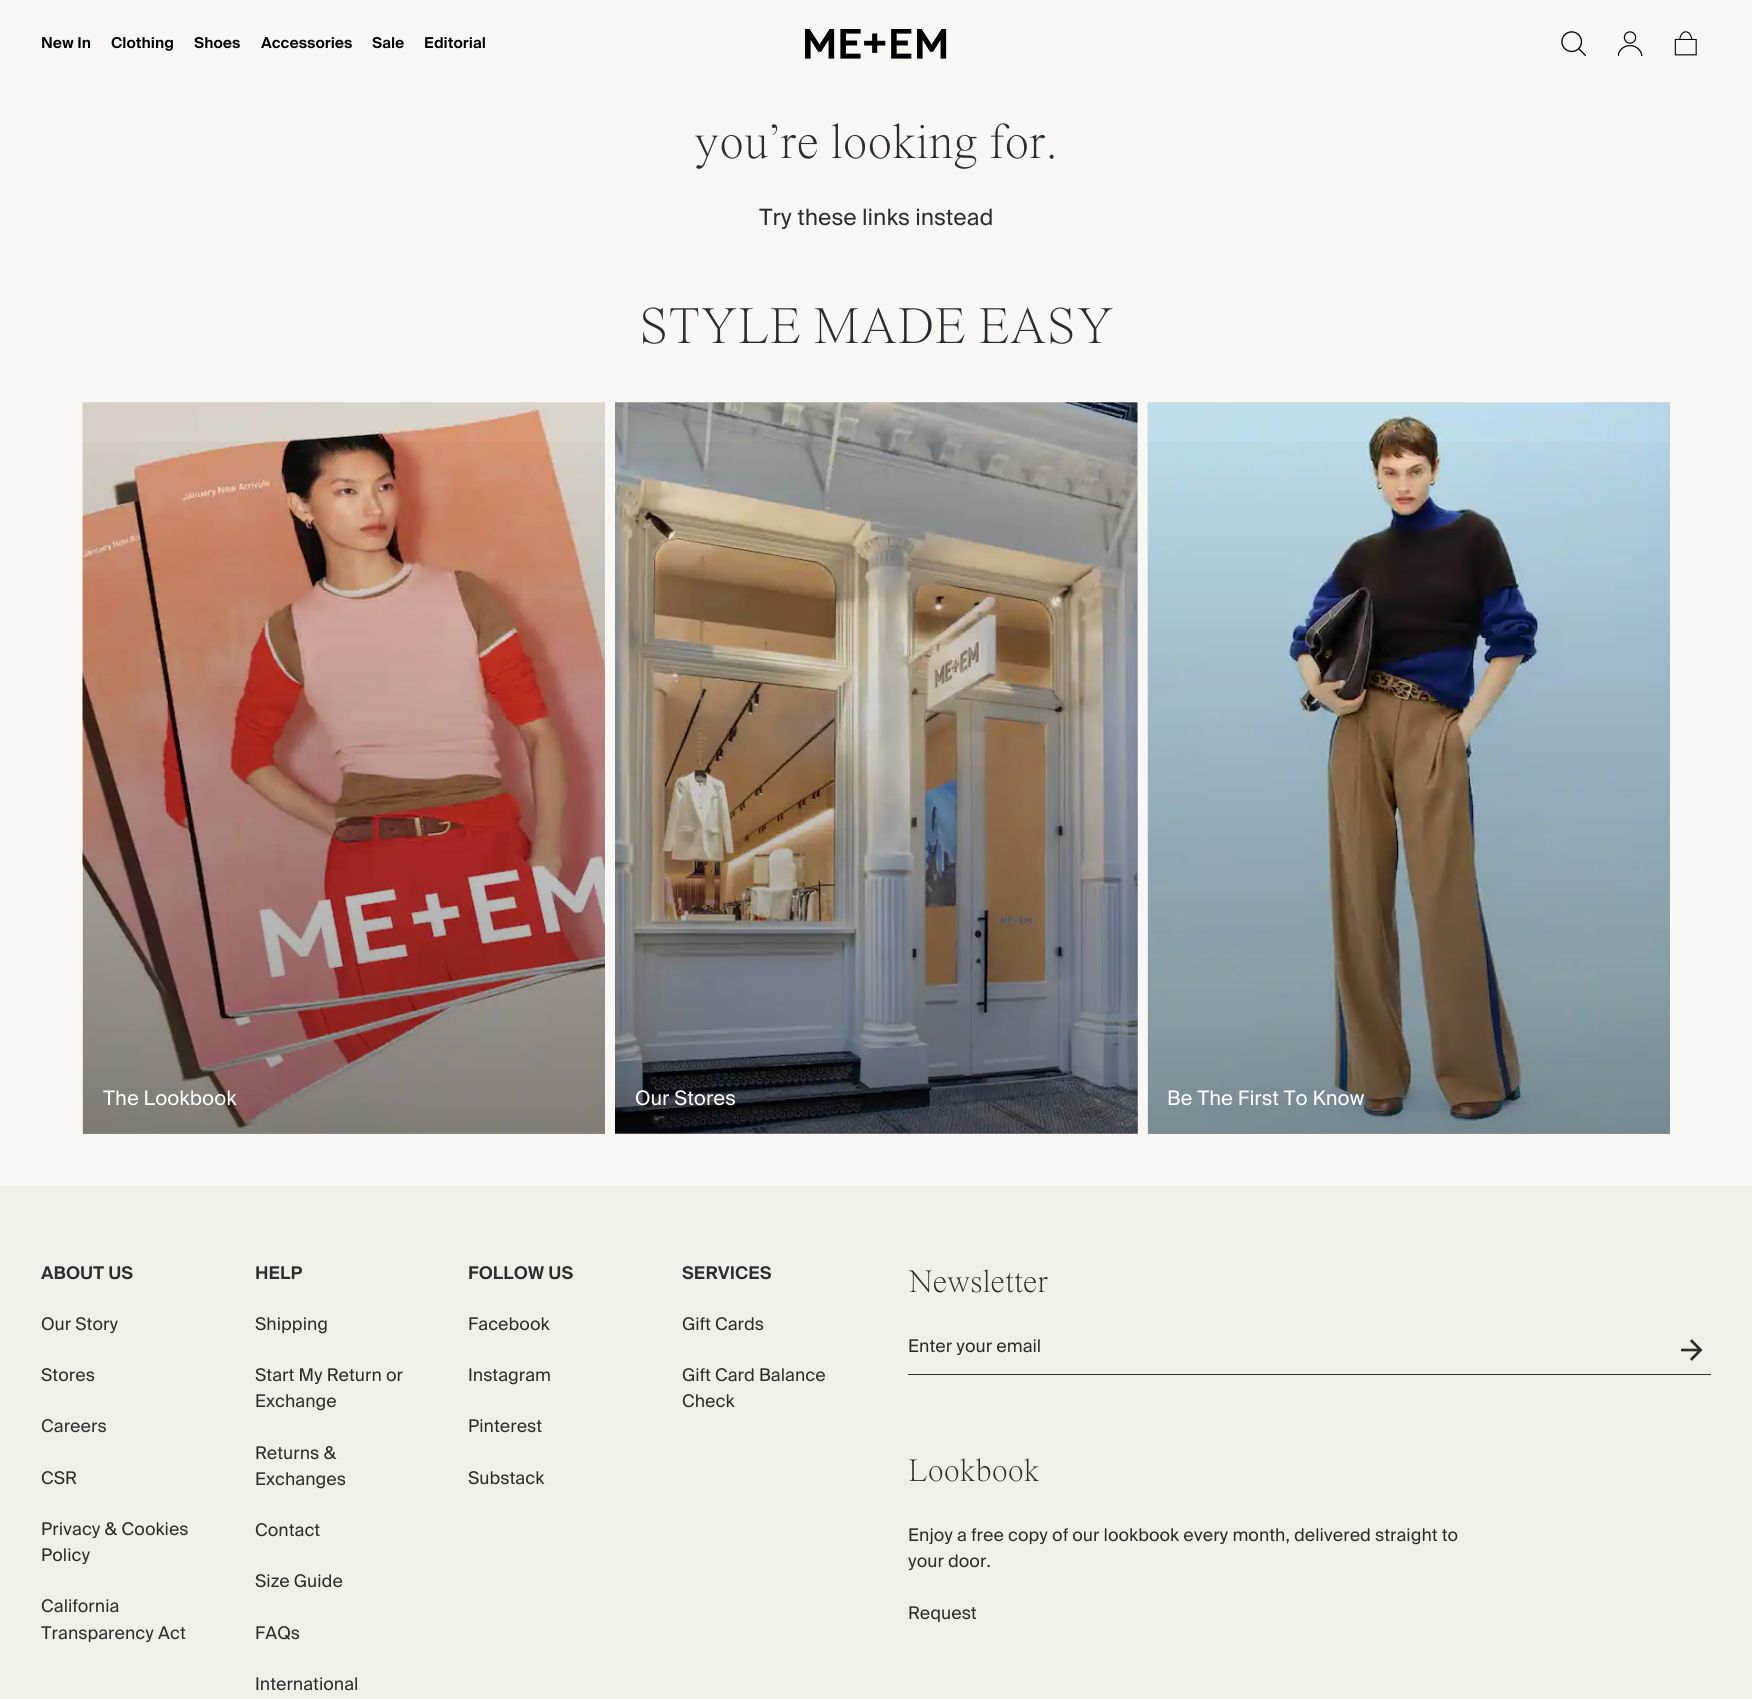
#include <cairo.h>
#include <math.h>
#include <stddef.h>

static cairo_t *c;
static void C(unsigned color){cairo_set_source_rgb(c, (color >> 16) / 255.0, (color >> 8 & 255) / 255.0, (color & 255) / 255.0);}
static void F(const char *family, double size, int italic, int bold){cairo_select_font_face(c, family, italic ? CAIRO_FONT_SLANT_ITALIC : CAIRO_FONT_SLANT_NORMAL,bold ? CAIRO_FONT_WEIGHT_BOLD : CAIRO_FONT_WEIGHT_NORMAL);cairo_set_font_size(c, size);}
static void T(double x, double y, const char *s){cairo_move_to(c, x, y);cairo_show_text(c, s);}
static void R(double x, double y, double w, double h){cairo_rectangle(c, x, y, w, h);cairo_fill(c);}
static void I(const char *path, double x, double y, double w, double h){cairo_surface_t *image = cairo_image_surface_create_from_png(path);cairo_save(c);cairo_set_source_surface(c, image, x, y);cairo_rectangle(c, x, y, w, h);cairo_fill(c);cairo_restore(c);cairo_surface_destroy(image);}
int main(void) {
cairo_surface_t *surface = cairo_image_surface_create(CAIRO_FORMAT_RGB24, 1752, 1699);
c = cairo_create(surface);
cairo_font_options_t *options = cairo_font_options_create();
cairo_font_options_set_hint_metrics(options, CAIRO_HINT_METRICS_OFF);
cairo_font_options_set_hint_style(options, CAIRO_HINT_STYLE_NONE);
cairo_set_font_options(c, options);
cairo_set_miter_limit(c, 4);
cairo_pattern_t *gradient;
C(0xf8f7f3);
cairo_paint(c);
F("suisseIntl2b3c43 SemiBold",15,0,0);
C(0x000000);
T(41,48,"New In");
T(111,48,"Clothing");
T(194,48,"Shoes");
T(261,48,"Accessories");
T(372,48,"Sale");
T(424,48,"Editorial");
I("1.png",805,29,142,30);
I("2.png",1561,31,25,25);
I("3.png",1618,31,25,25);
I("4.png",1674,31,23,25);
F("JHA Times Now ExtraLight",50,0,0);
C(0x2c2c2c);
T(694,158,"you’re looking for.");
F("suisseIntl2b3c43",22.5,0,0);
T(759,225,"Try these links instead");
F("JHA Times Now ExtraLight",52.5,0,0);
T(639,343,"STYLE MADE EASY");
C(0xf1efe9);
R(83,1133,522,1);
I("5.png",82,402,523,732);
gradient = cairo_pattern_create_linear(344,1134,344,403);
cairo_pattern_add_color_stop_rgba(gradient,0,0,0,0,.4);
cairo_pattern_add_color_stop_rgba(gradient,1,0,0,0,0);
cairo_set_source(c,gradient);
cairo_pattern_destroy(gradient);
R(83,442,522,692);
F("suisseIntl2b3c43",20,0,0);
C(0xffffff);
T(103,1105,"The Lookbook");
C(0xf1efe9);
R(615,403,523,731);
I("6.png",615,402,523,732);
gradient = cairo_pattern_create_linear(876,1134,876,403);
cairo_pattern_add_color_stop_rgba(gradient,0,0,0,0,.4);
cairo_pattern_add_color_stop_rgba(gradient,1,0,0,0,0);
cairo_set_source(c,gradient);
cairo_pattern_destroy(gradient);
R(615,442,523,692);
C(0xffffff);
T(635,1105,"Our Stores");
C(0xf1efe9);
R(1148,1133,522,1);
I("7.png",1147,402,523,732);
gradient = cairo_pattern_create_linear(1409,1134,1409,403);
cairo_pattern_add_color_stop_rgba(gradient,0,0,0,0,.4);
cairo_pattern_add_color_stop_rgba(gradient,1,0,0,0,0);
cairo_set_source(c,gradient);
cairo_pattern_destroy(gradient);
R(1148,442,522,692);
C(0xffffff);
T(1167,1105,"Be The First To Know");
C(0xf1efe9);
R(0,1186,1752,513);
F("suisseIntl2b3c43 SemiBold",17.5,0,0);
C(0x2c2c2c);
T(41,1279,"ABOUT US");
F("suisseIntl2b3c43",17.5,0,0);
T(41,1330,"Our Story");
T(41,1381,"Stores");
T(41,1432,"Careers");
T(41,1484,"CSR");
T(41,1535,"Privacy & Cookies");
T(41,1561,"Policy");
T(41,1612,"California");
T(41,1639,"Transparency Act");
F("suisseIntl2b3c43 SemiBold",17.5,0,0);
T(255,1279,"HELP");
F("suisseIntl2b3c43",17.5,0,0);
T(255,1330,"Shipping");
T(255,1381,"Start My Return or");
T(255,1407,"Exchange");
T(255,1459,"Returns &");
T(255,1485,"Exchanges");
T(255,1536,"Contact");
T(255,1587,"Size Guide");
T(255,1639,"FAQs");
T(255,1690,"International");
F("suisseIntl2b3c43 SemiBold",17.5,0,0);
T(468,1279,"FOLLOW US");
F("suisseIntl2b3c43",17.5,0,0);
T(468,1330,"Facebook");
T(468,1381,"Instagram");
T(468,1432,"Pinterest");
T(468,1484,"Substack");
F("suisseIntl2b3c43 SemiBold",17.5,0,0);
T(682,1279,"SERVICES");
F("suisseIntl2b3c43",17.5,0,0);
T(682,1330,"Gift Cards");
T(682,1381,"Gift Card Balance");
T(682,1407,"Check");
F("JHA Times Now ExtraLight",32.5,0,0);
T(908,1292,"Newsletter");
F("suisseIntl2b3c43",17.5,0,0);
T(908,1352,"Enter your email");
I("8.png",1681,1339,22,22);
R(908,1374,803,1);
F("JHA Times Now ExtraLight",32.5,0,0);
T(908,1481,"Lookbook");
F("suisseIntl2b3c43",17.5,0,0);
T(908,1541,"Enjoy a free copy of our lookbook every month, delivered straight to");
T(908,1567,"your door.");
T(908,1619,"Request");
cairo_surface_write_to_png(surface, "o.png");
cairo_font_options_destroy(options);
cairo_destroy(c);
cairo_surface_destroy(surface);
return 0;
}
